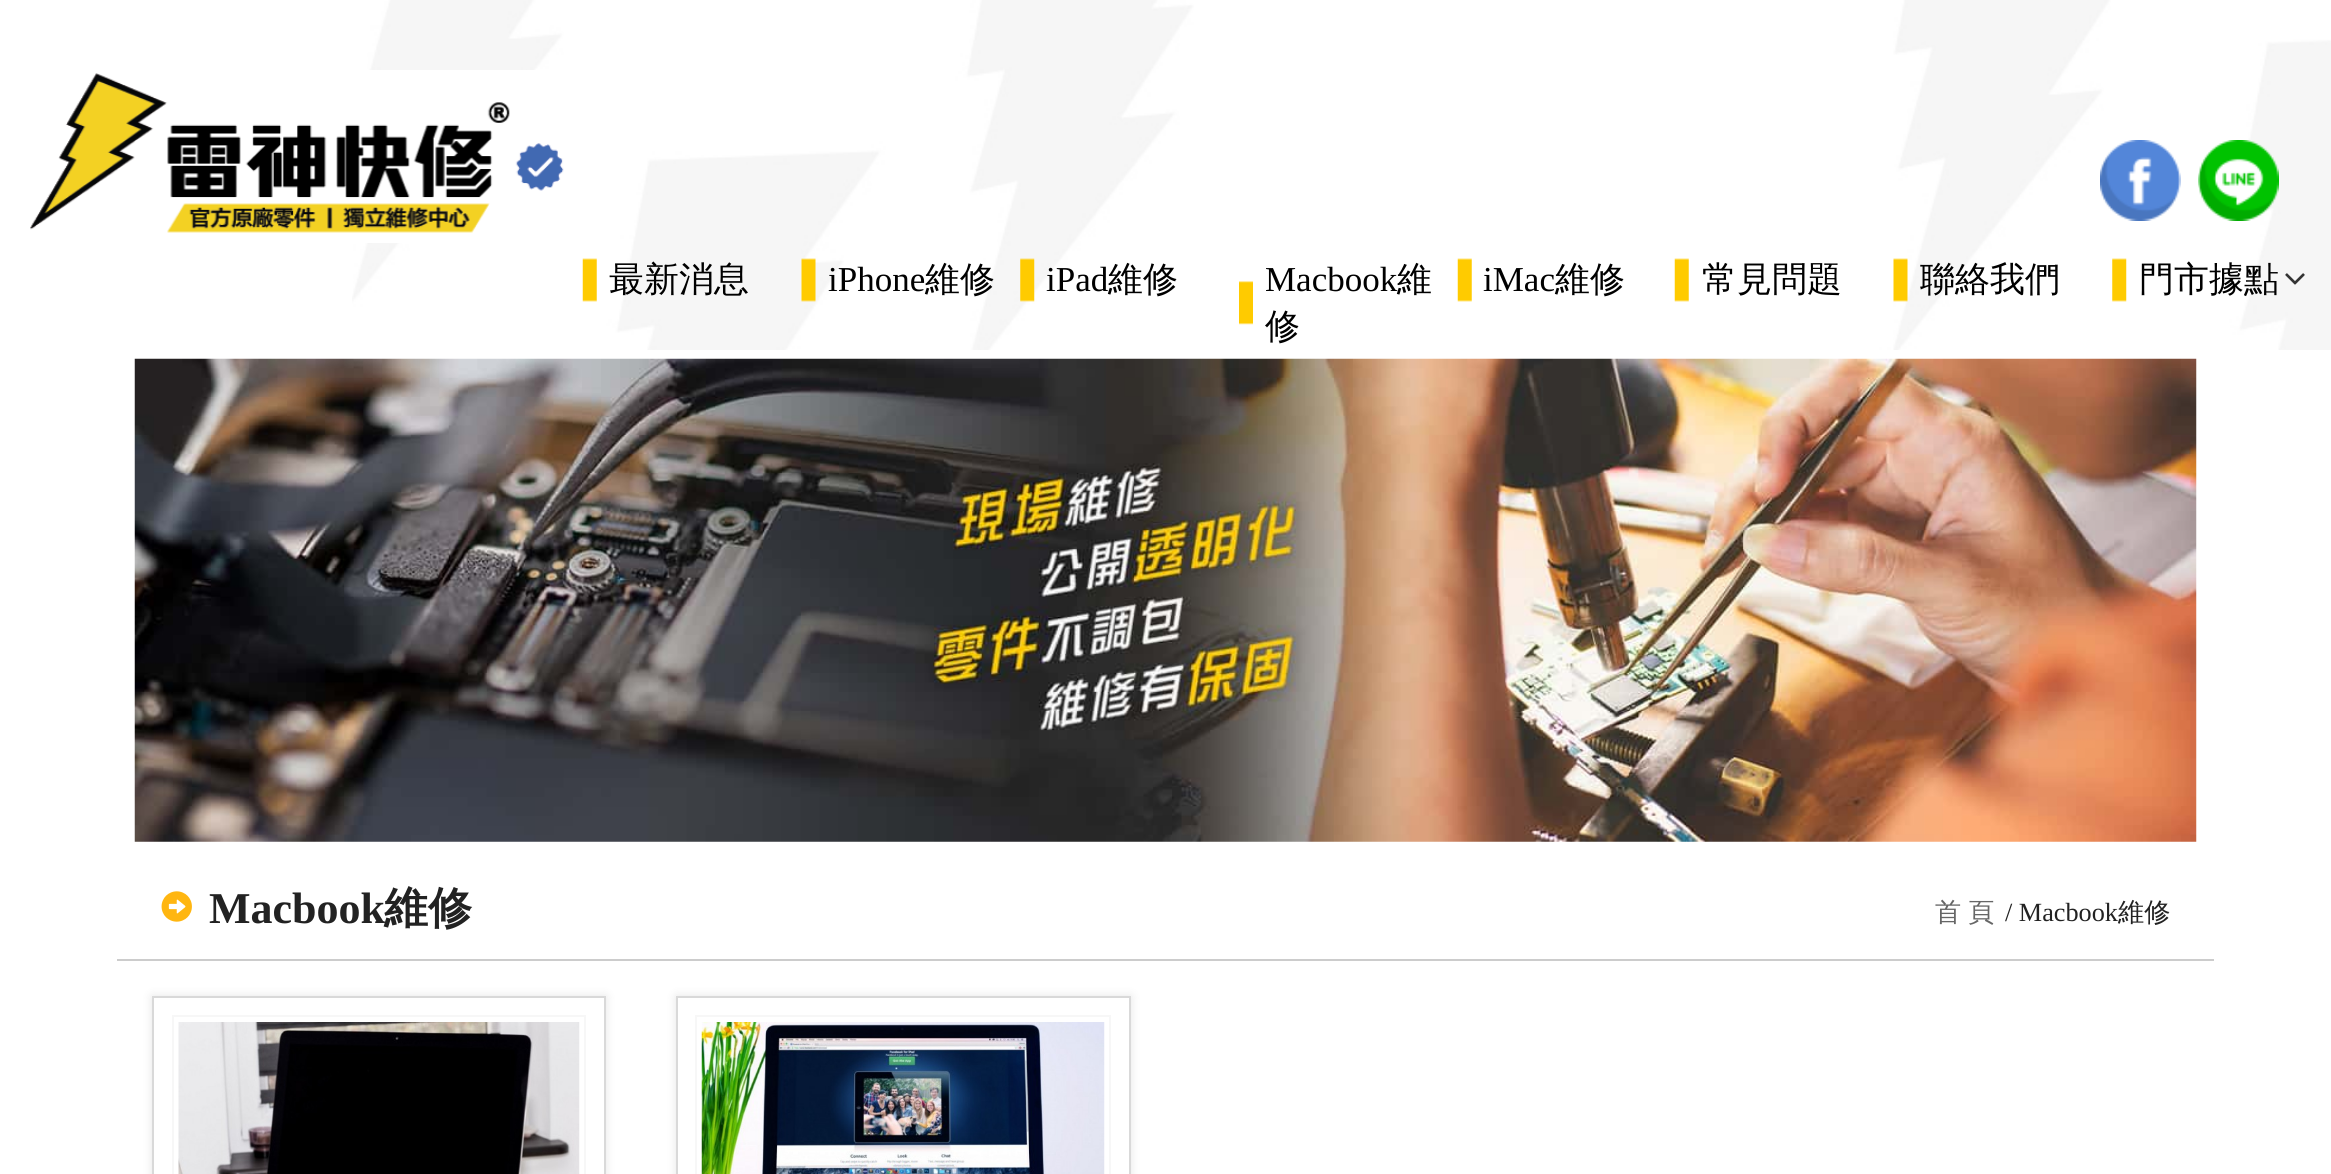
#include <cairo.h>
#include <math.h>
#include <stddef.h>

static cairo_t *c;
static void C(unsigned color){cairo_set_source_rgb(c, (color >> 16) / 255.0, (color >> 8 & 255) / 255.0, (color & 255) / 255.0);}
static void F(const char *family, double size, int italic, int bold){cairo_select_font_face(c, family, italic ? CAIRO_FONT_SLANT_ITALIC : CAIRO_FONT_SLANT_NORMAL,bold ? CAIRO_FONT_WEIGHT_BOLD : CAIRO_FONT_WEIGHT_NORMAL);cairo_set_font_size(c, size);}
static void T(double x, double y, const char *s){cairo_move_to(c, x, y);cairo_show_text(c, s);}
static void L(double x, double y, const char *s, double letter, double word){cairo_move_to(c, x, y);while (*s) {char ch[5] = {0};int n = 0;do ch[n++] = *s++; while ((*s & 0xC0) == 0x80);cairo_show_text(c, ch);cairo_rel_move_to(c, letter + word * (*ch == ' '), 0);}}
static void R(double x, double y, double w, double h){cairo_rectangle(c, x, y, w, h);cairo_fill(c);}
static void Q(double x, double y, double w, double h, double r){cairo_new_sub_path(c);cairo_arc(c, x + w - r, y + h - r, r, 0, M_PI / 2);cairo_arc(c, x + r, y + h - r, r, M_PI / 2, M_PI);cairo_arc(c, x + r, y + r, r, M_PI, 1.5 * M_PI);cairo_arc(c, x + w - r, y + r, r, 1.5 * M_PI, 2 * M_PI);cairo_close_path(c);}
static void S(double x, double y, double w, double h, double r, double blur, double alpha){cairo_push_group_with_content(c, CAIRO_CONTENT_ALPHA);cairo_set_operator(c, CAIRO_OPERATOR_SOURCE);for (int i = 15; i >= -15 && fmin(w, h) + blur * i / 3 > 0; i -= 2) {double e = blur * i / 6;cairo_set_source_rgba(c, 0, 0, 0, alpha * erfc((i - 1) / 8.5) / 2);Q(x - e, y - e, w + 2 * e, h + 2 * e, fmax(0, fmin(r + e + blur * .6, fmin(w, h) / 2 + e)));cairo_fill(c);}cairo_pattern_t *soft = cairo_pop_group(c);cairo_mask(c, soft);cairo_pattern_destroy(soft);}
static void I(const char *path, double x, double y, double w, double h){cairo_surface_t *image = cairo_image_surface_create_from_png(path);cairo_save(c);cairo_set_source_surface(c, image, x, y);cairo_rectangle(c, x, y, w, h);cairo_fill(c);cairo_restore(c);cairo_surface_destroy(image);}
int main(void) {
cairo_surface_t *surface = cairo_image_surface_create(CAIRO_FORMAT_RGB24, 2331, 1174);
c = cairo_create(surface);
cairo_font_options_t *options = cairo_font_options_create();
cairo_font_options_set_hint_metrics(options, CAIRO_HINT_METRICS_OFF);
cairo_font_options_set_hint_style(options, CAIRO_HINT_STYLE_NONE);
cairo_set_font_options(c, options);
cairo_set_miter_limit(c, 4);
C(0xffffff);
cairo_paint(c);
I("1.png",352,0,1979,350);
I("2.png",30,70,534,173);
I("3.png",2100,140,81,81);
I("4.png",2198,140,81,81);
I("5.png",582,258,15,44);
F("WenQuanYi Zen Hei Medium",35,0,0);
C(0x000000);
T(609,291,"最新消息");
I("6.png",801,258,15,44);
F("Liberation Serif",35,0,0);
T(828,291,"iPhone");
F("WenQuanYi Zen Hei Medium",35,0,0);
T(925,291,"維修");
I("7.png",1020,258,15,44);
F("Liberation Serif",35,0,0);
T(1046,291,"iPad");
F("WenQuanYi Zen Hei Medium",35,0,0);
T(1108,291,"維修");
I("8.png",1239,281,14,44);
F("Liberation Serif",35,0,0);
T(1265,291,"Macbook");
F("WenQuanYi Zen Hei Medium",35,0,0);
T(1397,291,"維");
T(1265,338,"修");
I("5.png",1457,258,15,44);
F("Liberation Serif",35,0,0);
T(1483,291,"iMac");
F("WenQuanYi Zen Hei Medium",35,0,0);
T(1555,291,"維修");
I("5.png",1674,258,15,44);
T(1702,291,"常見問題");
I("9.png",1893,258,15,44);
T(1920,291,"聯絡我們");
I("10.png",2112,258,15,44);
T(2139,291,"門市據點");
I("11.png",2285,273,20,12);
I("12.png",134,358,2063,484);
C(0xcccccc);
R(117,959,2097,2);
I("13.png",161,891,31,31);
F("Liberation Serif",44,0,1);
C(0x222222);
T(209,923,"Macbook");
F("WenQuanYi Zen Hei",44,0,1);
T(384,923,"維修");
F("WenQuanYi Zen Hei Medium",26.25,0,0);
C(0x666666);
L(1935,921,"首 頁",0,-1);
F("Liberation Serif",26.25,0,0);
C(0x222222);
T(2005,921,"/ Macbook");
F("WenQuanYi Zen Hei Medium",26.25,0,0);
T(2118,921,"維修");
cairo_save(c);
cairo_set_fill_rule(c,CAIRO_FILL_RULE_EVEN_ODD);
cairo_new_path(c);
cairo_move_to(c,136,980);
cairo_line_to(c,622,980);
cairo_line_to(c,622,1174);
cairo_line_to(c,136,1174);
cairo_close_path(c);
cairo_move_to(c,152,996);
cairo_line_to(c,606,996);
cairo_line_to(c,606,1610);
cairo_line_to(c,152,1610);
cairo_close_path(c);
cairo_clip(c);
C(0x000000);
S(152,996,454,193,0,5,.1);
cairo_restore(c);
cairo_rectangle(c,153,997,452,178);
C(0xd9d9d9);
cairo_stroke(c);
cairo_rectangle(c,173,1016,412,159);
C(0xf7f7f7);
cairo_stroke(c);
I("14.png",178,1022,402,152);
cairo_save(c);
cairo_set_fill_rule(c,CAIRO_FILL_RULE_EVEN_ODD);
cairo_new_path(c);
cairo_move_to(c,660,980);
cairo_line_to(c,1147,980);
cairo_line_to(c,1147,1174);
cairo_line_to(c,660,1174);
cairo_close_path(c);
cairo_move_to(c,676,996);
cairo_line_to(c,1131,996);
cairo_line_to(c,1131,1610);
cairo_line_to(c,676,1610);
cairo_close_path(c);
cairo_clip(c);
C(0x000000);
S(676,996,455,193,0,5,.1);
cairo_restore(c);
cairo_rectangle(c,677,997,453,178);
C(0xd9d9d9);
cairo_stroke(c);
cairo_rectangle(c,696,1016,414,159);
C(0xf7f7f7);
cairo_stroke(c);
I("15.png",701,1022,404,152);
cairo_surface_write_to_png(surface, "o.png");
cairo_font_options_destroy(options);
cairo_destroy(c);
cairo_surface_destroy(surface);
return 0;
}
